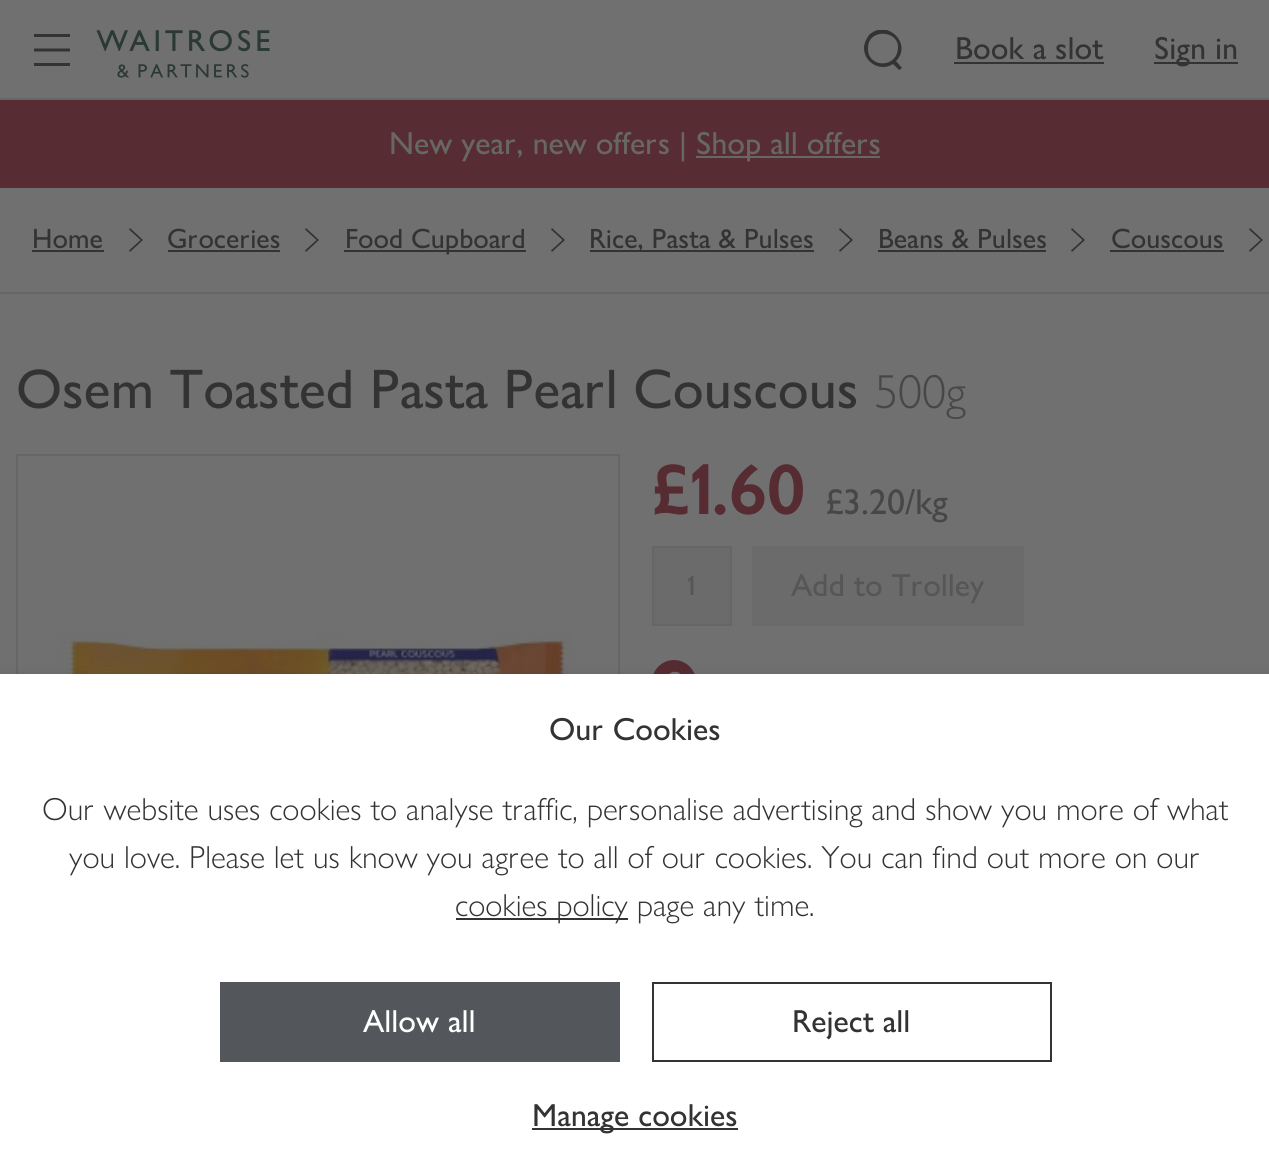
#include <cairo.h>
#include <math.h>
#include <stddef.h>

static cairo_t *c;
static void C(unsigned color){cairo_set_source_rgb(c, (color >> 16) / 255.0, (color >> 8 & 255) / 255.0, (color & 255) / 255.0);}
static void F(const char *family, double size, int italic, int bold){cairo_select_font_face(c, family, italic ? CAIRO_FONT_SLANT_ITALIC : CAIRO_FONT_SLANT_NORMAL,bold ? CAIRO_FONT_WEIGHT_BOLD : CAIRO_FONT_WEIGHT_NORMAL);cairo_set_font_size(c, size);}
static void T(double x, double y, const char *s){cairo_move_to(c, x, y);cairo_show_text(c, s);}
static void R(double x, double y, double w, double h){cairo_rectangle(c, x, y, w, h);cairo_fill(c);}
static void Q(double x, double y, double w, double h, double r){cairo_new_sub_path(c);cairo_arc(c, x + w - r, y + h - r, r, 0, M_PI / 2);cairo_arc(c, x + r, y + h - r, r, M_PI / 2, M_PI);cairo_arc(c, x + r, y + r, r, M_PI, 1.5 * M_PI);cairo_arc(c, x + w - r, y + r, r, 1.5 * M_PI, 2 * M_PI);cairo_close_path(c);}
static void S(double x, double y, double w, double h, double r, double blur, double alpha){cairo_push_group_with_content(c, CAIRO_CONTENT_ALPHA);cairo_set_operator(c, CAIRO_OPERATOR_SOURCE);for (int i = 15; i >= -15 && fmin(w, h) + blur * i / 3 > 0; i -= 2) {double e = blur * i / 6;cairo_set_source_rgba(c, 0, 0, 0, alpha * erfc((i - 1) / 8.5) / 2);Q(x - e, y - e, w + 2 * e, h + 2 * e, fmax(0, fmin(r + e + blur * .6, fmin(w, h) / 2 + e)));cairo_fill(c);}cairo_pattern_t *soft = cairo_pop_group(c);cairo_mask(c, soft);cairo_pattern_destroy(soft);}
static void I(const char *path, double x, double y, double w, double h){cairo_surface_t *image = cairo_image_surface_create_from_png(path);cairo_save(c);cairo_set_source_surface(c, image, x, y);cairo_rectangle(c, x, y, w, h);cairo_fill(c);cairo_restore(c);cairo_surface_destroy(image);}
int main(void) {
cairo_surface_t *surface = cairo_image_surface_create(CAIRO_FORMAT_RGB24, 1269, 1170);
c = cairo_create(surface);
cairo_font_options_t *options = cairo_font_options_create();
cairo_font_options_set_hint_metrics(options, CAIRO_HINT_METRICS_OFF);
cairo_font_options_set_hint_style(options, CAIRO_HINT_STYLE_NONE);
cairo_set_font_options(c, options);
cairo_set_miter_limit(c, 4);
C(0x707070);
cairo_paint(c);
C(0x666666);
R(0,98,1269,2);
C(0x333333);
cairo_new_path(c);
cairo_move_to(c,34,63);
cairo_line_to(c,70,63);
cairo_line_to(c,70,66);
cairo_line_to(c,34,66);
cairo_close_path(c);
cairo_move_to(c,34,34);
cairo_line_to(c,70,34);
cairo_line_to(c,70,37);
cairo_line_to(c,34,37);
cairo_close_path(c);
cairo_move_to(c,34,48.5);
cairo_line_to(c,70,48.5);
cairo_line_to(c,70,51.5);
cairo_line_to(c,34,51.5);
cairo_close_path(c);
cairo_fill(c);
I("1.png",96,30,174,48);
cairo_save(c);
cairo_rectangle(c,864,30,40,40);
cairo_clip(c);
cairo_new_path(c);
cairo_move_to(c,868,48);
cairo_curve_to(c,868,28,899,30,898,48);
cairo_curve_to(c,897,69,867,68,868,48);
cairo_close_path(c);
cairo_move_to(c,864,48);
cairo_curve_to(c,864,63,881,72,893,64);
cairo_line_to(c,899,70);
cairo_line_to(c,902,68);
cairo_line_to(c,896,61);
cairo_curve_to(c,913,44,887,18,869,35);
cairo_curve_to(c,866,39,864,44,864,48);
cairo_close_path(c);
cairo_fill(c);
cairo_restore(c);
F("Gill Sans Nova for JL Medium",32,0,0);
T(955,59,"Book a slot");
R(954,62,150,2);
R(1154,62,84,2);
T(1154,59,"Sign in");
C(0x572c32);
R(0,100,1269,88);
C(0x676764);
T(389,154,"New year, new offers |");
R(696,156,184,2);
T(696,154,"Shop all offers");
C(0x666666);
R(0,292,1269,2);
F("Gill Sans Nova for JL Medium",28,0,0);
C(0x333333);
T(32,248,"Home");
R(32,250,72,2);
cairo_new_path(c);
cairo_move_to(c,140.5,240);
cairo_line_to(c,129,250.5);
cairo_line_to(c,130,252);
cairo_line_to(c,143,240);
cairo_line_to(c,130,228);
cairo_line_to(c,129,229.5);
cairo_close_path(c);
cairo_fill(c);
T(167,248,"Groceries");
R(168,250,112,2);
cairo_new_path(c);
cairo_move_to(c,316.5,240);
cairo_line_to(c,305,250.5);
cairo_line_to(c,306,252);
cairo_line_to(c,319,240);
cairo_line_to(c,306,228);
cairo_line_to(c,305,229.5);
cairo_close_path(c);
cairo_fill(c);
R(344,250,182,2);
T(345,248,"Food Cupboard");
cairo_new_path(c);
cairo_move_to(c,562.5,240);
cairo_line_to(c,551,250.5);
cairo_line_to(c,552,252);
cairo_line_to(c,565,240);
cairo_line_to(c,552,228);
cairo_line_to(c,551,229.5);
cairo_close_path(c);
cairo_fill(c);
R(590,250,224,2);
T(589,248,"Rice, Pasta & Pulses");
cairo_new_path(c);
cairo_move_to(c,850.5,240);
cairo_line_to(c,839,250.5);
cairo_line_to(c,840,252);
cairo_line_to(c,853,240);
cairo_line_to(c,840,228);
cairo_line_to(c,839,229.5);
cairo_close_path(c);
cairo_fill(c);
T(878,248,"Beans & Pulses");
R(878,250,168,2);
cairo_new_path(c);
cairo_move_to(c,1082.5,240);
cairo_line_to(c,1071,250.5);
cairo_line_to(c,1072,252);
cairo_line_to(c,1085,240);
cairo_line_to(c,1072,228);
cairo_line_to(c,1071,229.5);
cairo_close_path(c);
cairo_fill(c);
T(1111,248,"Couscous");
R(1110,250,114,2);
cairo_new_path(c);
cairo_move_to(c,1260.5,240);
cairo_line_to(c,1249,250.5);
cairo_line_to(c,1250,252);
cairo_line_to(c,1263,240);
cairo_line_to(c,1250,228);
cairo_line_to(c,1249,229.5);
cairo_close_path(c);
cairo_fill(c);
F("Gill Sans Nova for JL Medium",56,0,0);
T(16,408,"Osem Toasted Pasta Pearl Couscous");
F("Gill Sans Nova for JL Light",48,0,0);
C(0x474747);
T(874,408,"500g");
cairo_rectangle(c,17,455,602,622);
C(0x666666);
cairo_stroke(c);
I("2.png",58,630,516,44);
F("Gill Sans Nova for JL SemiBold",72,0,0);
C(0x562b32);
T(651,514,"£1.60");
F("Gill Sans Nova for JL Medium",36,0,0);
C(0x474747);
T(825,514,"£3.20/kg");
C(0x6b6b6b);
cairo_rectangle(c,653,547,78,78);
cairo_fill_preserve(c);
C(0x666666);
cairo_stroke(c);
F("Gill Sans Nova for JL Medium",28,0,0);
C(0x565656);
T(687,595,"1");
C(0x6b6b6b);
R(752,546,272,80);
F("Gill Sans Nova for JL Medium",32,0,0);
C(0x565656);
T(791,596,"Add to Trolley");
I("3.png",653,660,42,14);
C(0x333333);
S(0,680,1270,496,0,7,.4);
C(0xffffff);
R(0,674,1269,496);
C(0x333333);
T(549,740,"Our Cookies");
F("Gill Sans Nova for JL Light",32,0,0);
T(42,820,"Our website uses cookies to analyse traffic, personalise advertising and show you more of what");
T(69,868,"you love. Please let us know you agree to all of our cookies. You can find out more on our");
R(456,918,172,2);
T(455,916,"cookies policy page any time.");
C(0x53565a);
R(220,982,400,80);
F("Gill Sans Nova for JL Medium",32,0,0);
C(0xffffff);
T(363,1032,"Allow all");
cairo_rectangle(c,653,983,398,78);
C(0x333333);
cairo_stroke(c);
T(792,1032,"Reject all");
R(532,1128,206,2);
T(532,1126,"Manage cookies");
cairo_surface_write_to_png(surface, "o.png");
cairo_font_options_destroy(options);
cairo_destroy(c);
cairo_surface_destroy(surface);
return 0;
}
